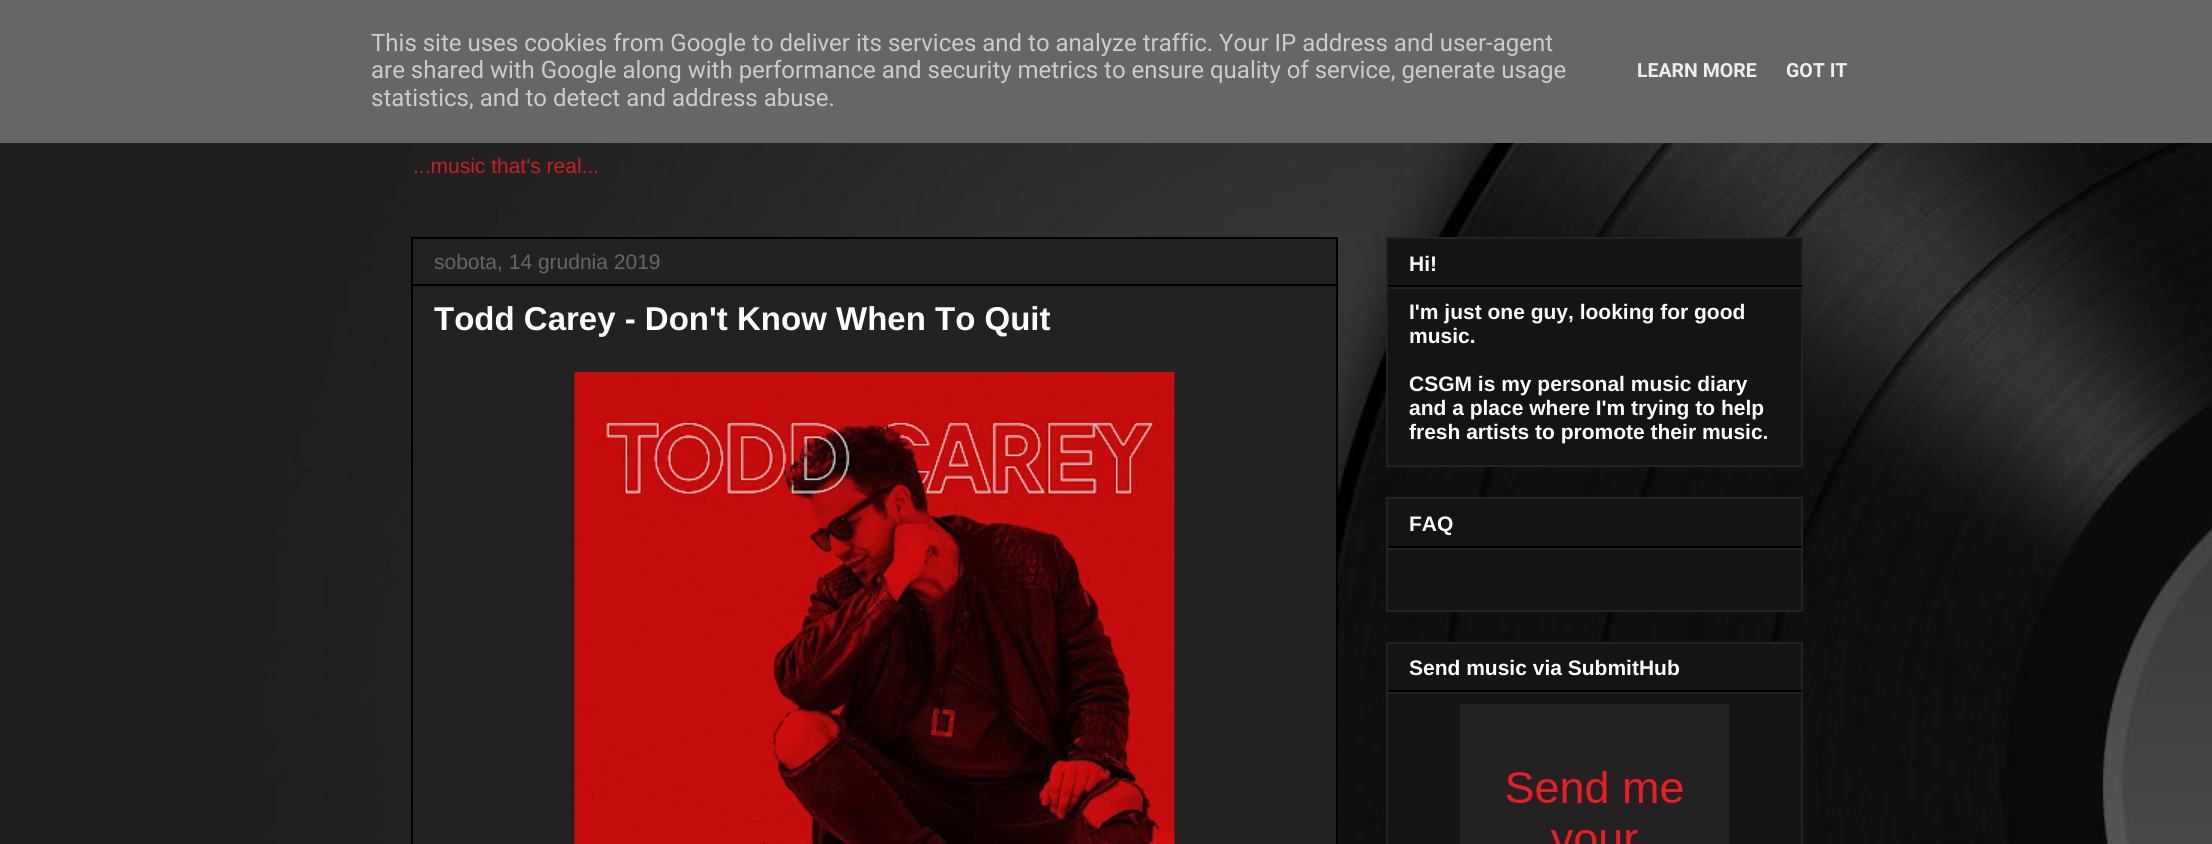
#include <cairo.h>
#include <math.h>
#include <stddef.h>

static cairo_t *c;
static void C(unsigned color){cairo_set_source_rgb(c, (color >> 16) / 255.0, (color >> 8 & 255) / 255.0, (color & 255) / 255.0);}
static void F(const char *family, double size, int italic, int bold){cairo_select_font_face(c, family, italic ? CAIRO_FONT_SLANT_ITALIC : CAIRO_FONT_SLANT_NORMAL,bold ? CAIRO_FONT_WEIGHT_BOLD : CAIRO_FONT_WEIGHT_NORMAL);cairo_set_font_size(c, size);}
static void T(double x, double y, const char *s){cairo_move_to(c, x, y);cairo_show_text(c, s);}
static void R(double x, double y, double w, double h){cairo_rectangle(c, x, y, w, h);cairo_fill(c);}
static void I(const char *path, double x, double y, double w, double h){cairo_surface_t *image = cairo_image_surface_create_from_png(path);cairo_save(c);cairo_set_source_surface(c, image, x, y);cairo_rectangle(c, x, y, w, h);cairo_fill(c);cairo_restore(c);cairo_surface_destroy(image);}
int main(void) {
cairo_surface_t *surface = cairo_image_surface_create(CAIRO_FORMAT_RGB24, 2212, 844);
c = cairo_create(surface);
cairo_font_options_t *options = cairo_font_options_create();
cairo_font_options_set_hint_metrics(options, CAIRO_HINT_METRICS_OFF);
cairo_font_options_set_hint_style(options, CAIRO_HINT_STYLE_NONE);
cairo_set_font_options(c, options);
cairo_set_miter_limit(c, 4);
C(0xffffff);
cairo_paint(c);
I("1.png",0,143,2212,701);
C(0x666666);
R(0,0,2212,143);
F("Roboto",24,0,0);
C(0xcccccc);
T(371,51,"This site uses cookies from Google to deliver its services and to analyze traffic. Your IP address and user-agent");
T(371,78,"are shared with Google along with performance and security metrics to ensure quality of service, generate usage");
T(371,106,"statistics, and to detect and address abuse.");
F("Roboto",19.5,0,1);
C(0xeeeeee);
T(1637,77,"LEARN MORE");
T(1786,77,"GOT IT");
F("Liberation Sans",21,0,0);
C(0xc91f1f);
T(413,173,"...music that's real...");
C(0x222222);
cairo_rectangle(c,412,238,925,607);
cairo_fill_preserve(c);
C(0x000000);
cairo_stroke(c);
R(413,284,924,2);
C(0x666666);
T(434,269,"sobota, 14 grudnia 2019");
C(0x222222);
R(1336,287,1,2);
F("Liberation Sans",33,0,1);
C(0xffffff);
T(434,330,"Todd Carey - Don't Know When To Quit");
I("2.png",574,372,601,472);
C(0x141414);
cairo_rectangle(c,1387,238,415,228);
cairo_fill_preserve(c);
C(0x222222);
cairo_stroke(c);
C(0x000000);
R(1388,285,414,2);
F("Liberation Sans",21,0,1);
C(0xffffff);
T(1409,271,"Hi!");
C(0x222222);
R(1388,287,414,2);
C(0xffffff);
T(1409,319,"I'm just one guy, looking for good");
T(1409,343,"music.");
T(1409,391,"CSGM is my personal music diary");
T(1409,415,"and a place where I'm trying to help");
T(1409,439,"fresh artists to promote their music.");
C(0x141414);
cairo_rectangle(c,1387,498,415,113);
cairo_fill_preserve(c);
C(0x222222);
cairo_stroke(c);
C(0x000000);
R(1388,546,414,2);
C(0xffffff);
T(1409,531,"FAQ");
C(0x222222);
R(1388,548,414,2);
C(0x141414);
cairo_rectangle(c,1387,643,415,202);
cairo_fill_preserve(c);
C(0x222222);
cairo_stroke(c);
C(0x000000);
R(1388,690,414,2);
C(0xffffff);
T(1409,675,"Send music via SubmitHub");
C(0x222222);
R(1388,692,414,2);
I("3.png",1460,704,269,140);
cairo_surface_write_to_png(surface, "o.png");
cairo_font_options_destroy(options);
cairo_destroy(c);
cairo_surface_destroy(surface);
return 0;
}
